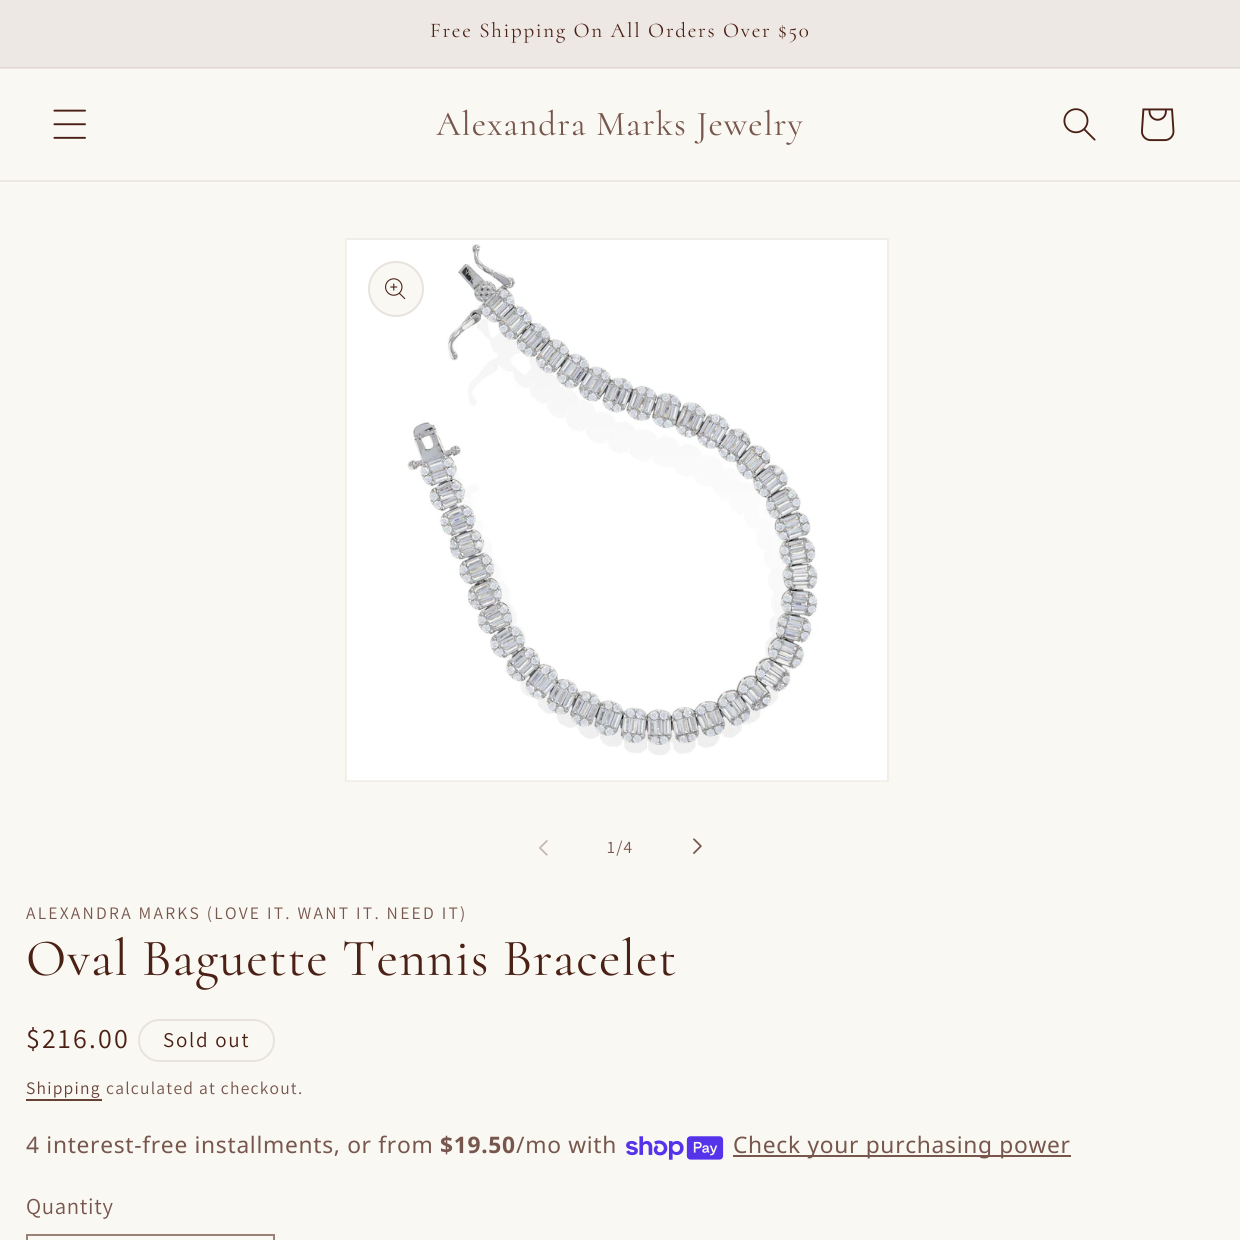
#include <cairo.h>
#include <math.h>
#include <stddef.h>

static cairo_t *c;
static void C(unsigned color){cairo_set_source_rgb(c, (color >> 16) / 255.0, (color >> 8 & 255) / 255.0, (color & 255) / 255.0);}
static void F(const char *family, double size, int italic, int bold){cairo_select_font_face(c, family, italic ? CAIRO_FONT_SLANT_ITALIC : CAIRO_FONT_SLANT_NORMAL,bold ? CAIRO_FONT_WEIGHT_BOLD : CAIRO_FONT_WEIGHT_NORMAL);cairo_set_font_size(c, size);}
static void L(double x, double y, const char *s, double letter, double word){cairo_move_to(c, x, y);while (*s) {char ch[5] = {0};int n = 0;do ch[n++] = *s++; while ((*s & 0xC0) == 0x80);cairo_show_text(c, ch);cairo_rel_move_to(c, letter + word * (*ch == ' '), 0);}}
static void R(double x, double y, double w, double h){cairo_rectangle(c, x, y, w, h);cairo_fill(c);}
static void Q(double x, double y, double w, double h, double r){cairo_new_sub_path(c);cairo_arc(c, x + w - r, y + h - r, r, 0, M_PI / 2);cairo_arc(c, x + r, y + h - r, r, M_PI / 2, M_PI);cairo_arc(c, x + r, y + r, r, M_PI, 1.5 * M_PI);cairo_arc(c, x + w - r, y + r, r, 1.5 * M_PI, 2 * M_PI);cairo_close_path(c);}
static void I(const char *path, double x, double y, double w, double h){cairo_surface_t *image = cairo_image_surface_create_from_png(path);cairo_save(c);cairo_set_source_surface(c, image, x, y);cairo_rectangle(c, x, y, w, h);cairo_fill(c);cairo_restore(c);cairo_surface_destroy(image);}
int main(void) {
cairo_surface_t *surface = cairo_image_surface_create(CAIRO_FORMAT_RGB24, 1240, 1240);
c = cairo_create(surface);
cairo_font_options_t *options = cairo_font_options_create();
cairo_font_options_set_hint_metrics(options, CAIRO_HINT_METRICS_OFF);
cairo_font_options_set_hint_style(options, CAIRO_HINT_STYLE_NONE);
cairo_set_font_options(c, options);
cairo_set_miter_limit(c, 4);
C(0xfaf8f3);
cairo_paint(c);
C(0xece7e1);
R(0,68,1240,1);
C(0xeee8e4);
R(0,0,1240,67);
C(0xe1d8d4);
R(0,67,1240,1);
F("Cormorant",21,0,0);
C(0x4b2116);
L(430,37,"Free Shipping On All Orders Over $50",1.75,0);
C(0xece7e1);
R(0,180,1240,2);
I("1.png",53,109,33,30);
F("Cormorant",35,0,0);
C(0x77574d);
L(436,135,"Alexandra Marks Jewelry",1.05,0);
I("2.png",1063,108,33,33);
I("3.png",1141,108,34,34);
cairo_rectangle(c,346,239,542,542);
C(0xf1ede8);
cairo_stroke(c);
I("4.png",346,240,541,541);
C(0xfaf8f3);
cairo_arc(c,396,289,28,0,2 * M_PI);
cairo_fill(c);
cairo_arc(c,396,289,27,0,2 * M_PI);
cairo_set_source_rgba(c,0.294,0.129,0.086,0.1);
cairo_stroke(c);
I("5.png",385,278,21,22);
I("6.png",539,840,9,16);
F("Assistant",17.5,0,0);
C(0x77574d);
L(607,853,"1/4",1.25,0);
I("7.png",693,838,9,16);
L(26,919,"ALEXANDRA MARKS (LOVE IT. WANT IT. NEED IT)",2.25,0);
F("Cormorant",52.5,0,0);
C(0x4b2116);
L(26,975,"Oval Baguette Tennis Bracelet",1.05,0);
F("Assistant",28,0,0);
L(26,1048,"$216.00",2.25,0);
Q(139,1020,135,41,20.5);
C(0xe9e3dd);
cairo_stroke(c);
F("Assistant",21,0,0);
C(0x4b2116);
L(163,1047,"Sold out",1.75,0);
F("Assistant",17.5,0,0);
C(0x654137);
L(26,1094,"Shipping",1.25,0);
R(26,1099,76,2);
C(0x77574d);
L(106,1094,"calculated at checkout.",1.25,0);
F("Noto Sans",22.75,0,0);
L(26,1153,"4 interest-free installments, or from",.7,0);
F("Noto Sans",22.75,0,1);
L(440,1153,"$19.50",.7,0);
F("Noto Sans",22.75,0,0);
L(516,1153,"/mo with",.7,0);
I("8.png",626,1136,98,24);
R(733,1155,338,2);
L(733,1153,"Check your purchasing power",.7,0);
F("Assistant",22.75,0,0);
L(26,1214,"Quantity",.7,0);
cairo_rectangle(c,27,1235,247,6);
C(0x9a8279);
cairo_stroke(c);
cairo_surface_write_to_png(surface, "o.png");
cairo_font_options_destroy(options);
cairo_destroy(c);
cairo_surface_destroy(surface);
return 0;
}
